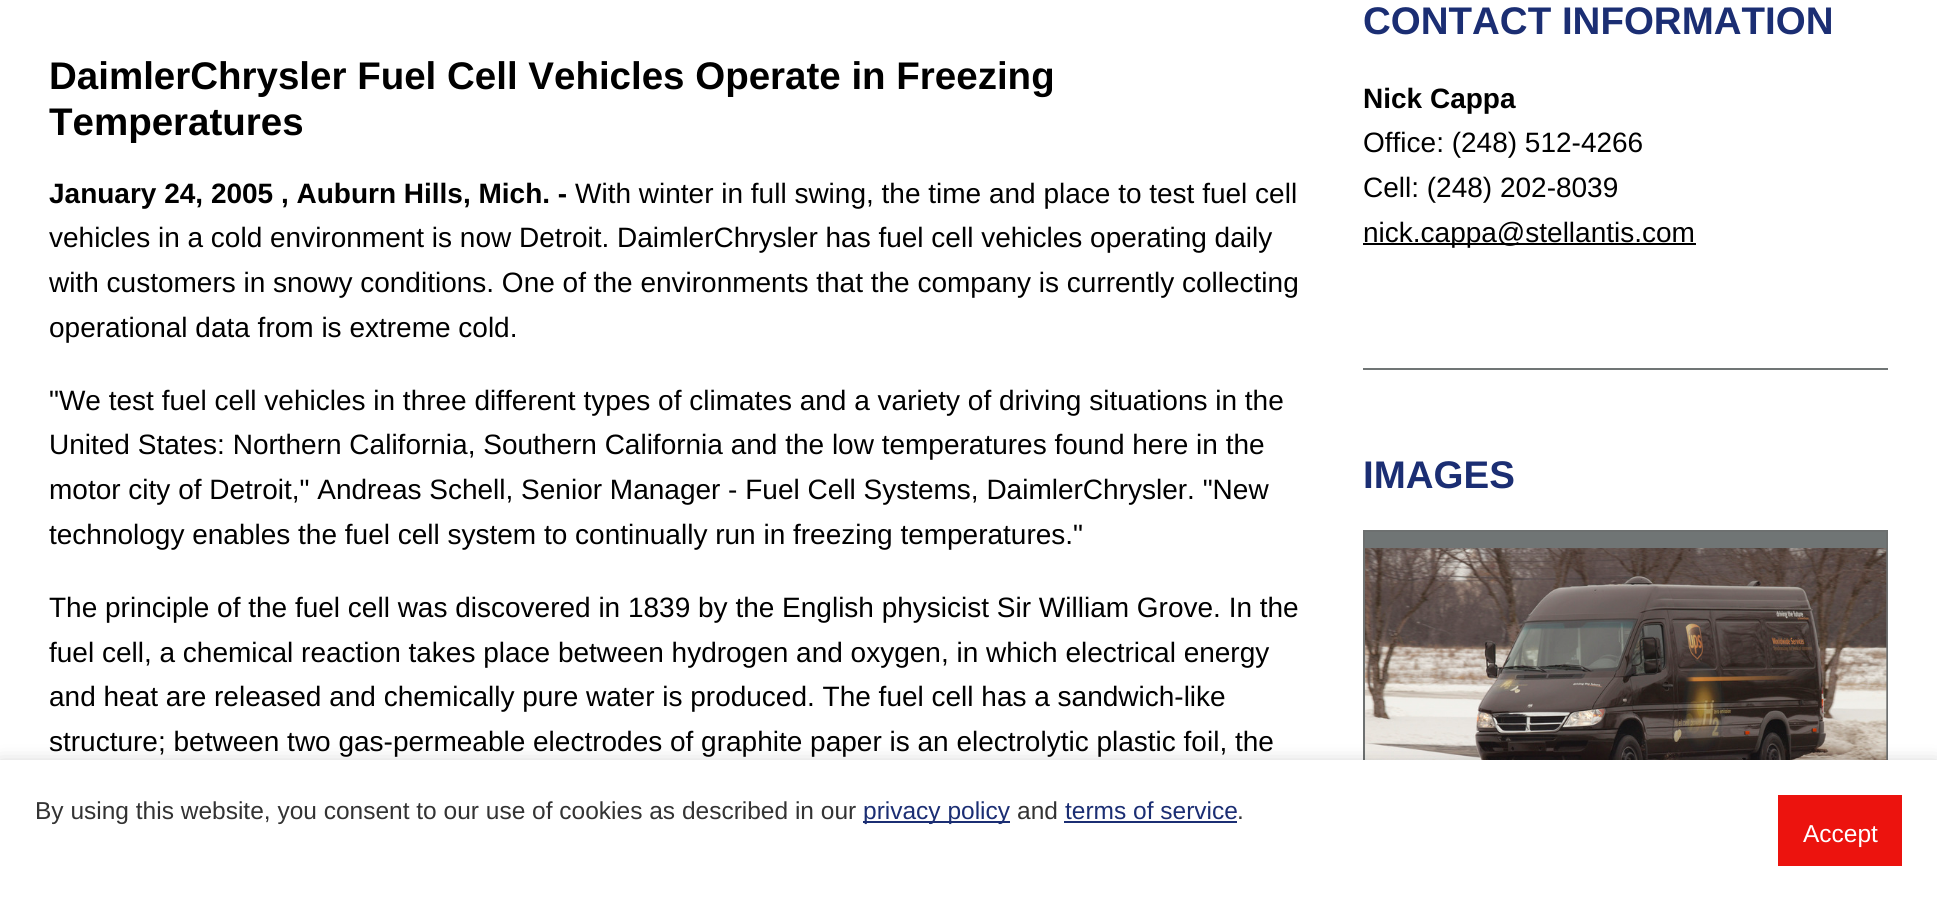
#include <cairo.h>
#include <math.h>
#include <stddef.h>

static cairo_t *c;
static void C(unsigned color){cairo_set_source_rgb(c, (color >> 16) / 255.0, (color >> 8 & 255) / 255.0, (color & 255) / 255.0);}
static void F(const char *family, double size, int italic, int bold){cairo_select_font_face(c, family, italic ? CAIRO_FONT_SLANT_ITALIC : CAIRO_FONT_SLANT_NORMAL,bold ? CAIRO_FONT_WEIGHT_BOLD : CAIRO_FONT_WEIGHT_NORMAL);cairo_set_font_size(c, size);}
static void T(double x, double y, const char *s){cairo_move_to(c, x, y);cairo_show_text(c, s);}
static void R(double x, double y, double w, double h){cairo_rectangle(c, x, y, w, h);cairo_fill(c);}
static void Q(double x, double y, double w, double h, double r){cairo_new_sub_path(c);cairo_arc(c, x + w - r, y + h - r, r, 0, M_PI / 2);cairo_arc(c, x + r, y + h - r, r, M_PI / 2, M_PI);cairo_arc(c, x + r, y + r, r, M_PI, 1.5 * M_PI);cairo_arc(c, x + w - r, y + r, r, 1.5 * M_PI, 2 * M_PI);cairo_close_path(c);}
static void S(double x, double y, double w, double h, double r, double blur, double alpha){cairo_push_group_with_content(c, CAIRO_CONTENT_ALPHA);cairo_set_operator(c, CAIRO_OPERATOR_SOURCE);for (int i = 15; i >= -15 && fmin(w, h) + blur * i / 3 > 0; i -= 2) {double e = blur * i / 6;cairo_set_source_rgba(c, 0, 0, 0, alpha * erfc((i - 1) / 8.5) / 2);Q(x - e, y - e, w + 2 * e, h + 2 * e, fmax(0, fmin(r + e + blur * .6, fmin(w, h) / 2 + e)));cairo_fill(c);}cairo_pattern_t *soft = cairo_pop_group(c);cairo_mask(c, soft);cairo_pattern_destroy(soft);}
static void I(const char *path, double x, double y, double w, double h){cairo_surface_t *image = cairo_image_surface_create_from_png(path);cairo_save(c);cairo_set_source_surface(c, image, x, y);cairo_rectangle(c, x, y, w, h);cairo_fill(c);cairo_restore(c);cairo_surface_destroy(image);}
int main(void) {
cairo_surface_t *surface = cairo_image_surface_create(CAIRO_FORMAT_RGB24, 1937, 900);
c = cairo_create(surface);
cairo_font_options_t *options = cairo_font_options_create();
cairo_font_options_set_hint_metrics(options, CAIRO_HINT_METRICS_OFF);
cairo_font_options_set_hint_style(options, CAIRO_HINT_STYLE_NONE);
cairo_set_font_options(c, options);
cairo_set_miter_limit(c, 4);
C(0xffffff);
cairo_paint(c);
F("Liberation Sans",38.5,0,1);
C(0x000000);
T(49,89,"DaimlerChrysler Fuel Cell Vehicles Operate in Freezing");
T(49,135,"Temperatures");
F("Liberation Sans",28,0,0);
T(575,203,"With winter in full swing, the time and place to test fuel cell");
T(49,247,"vehicles in a cold environment is now Detroit. DaimlerChrysler has fuel cell vehicles operating daily");
T(49,292,"with customers in snowy conditions. One of the environments that the company is currently collecting");
T(49,337,"operational data from is extreme cold.");
F("Liberation Sans",28,0,1);
T(49,203,"January 24, 2005 , Auburn Hills, Mich. -");
F("Liberation Sans",28,0,0);
T(49,410,"\"We test fuel cell vehicles in three different types of climates and a variety of driving situations in the");
T(49,454,"United States: Northern California, Southern California and the low temperatures found here in the");
T(49,499,"motor city of Detroit,\" Andreas Schell, Senior Manager - Fuel Cell Systems, DaimlerChrysler. \"New");
T(49,544,"technology enables the fuel cell system to continually run in freezing temperatures.\"");
T(49,617,"The principle of the fuel cell was discovered in 1839 by the English physicist Sir William Grove. In the");
T(49,662,"fuel cell, a chemical reaction takes place between hydrogen and oxygen, in which electrical energy");
T(49,706,"and heat are released and chemically pure water is produced. The fuel cell has a sandwich-like");
T(49,751,"structure; between two gas-permeable electrodes of graphite paper is an electrolytic plastic foil, the");
C(0x707575);
R(1363,368,525,2);
F("Liberation Sans",38.5,0,1);
C(0x1b2e73);
T(1363,34,"CONTACT INFORMATION");
F("Liberation Sans",28,0,1);
C(0x000000);
T(1363,108,"Nick Cappa");
F("Liberation Sans",28,0,0);
T(1363,152,"Office: (248) 512-4266");
T(1363,197,"Cell: (248) 202-8039");
R(1363,243,333,2);
T(1363,242,"nick.cappa@stellantis.com");
F("Liberation Sans",38.5,0,1);
C(0x1b2e73);
T(1363,488,"IMAGES");
C(0x707575);
R(1363,530,525,230);
I("1.png",1365,548,522,212);
cairo_rectangle(c,1364,531,523,364);
cairo_set_source_rgba(c,0.412,0.412,0.412,0.4);
cairo_stroke(c);
C(0x000000);
S(0,767,1937,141,0,10.5,.3);
C(0xffffff);
R(0,760,1937,140);
F("Liberation Sans",24.5,0,0);
C(0x333333);
T(35,819,"By using this website, you consent to our use of cookies as described in our");
C(0x1b2e73);
R(863,821,147,2);
T(863,819,"privacy policy");
C(0x333333);
T(1017,819,"and");
C(0x1b2e73);
T(1065,819,"terms of service");
R(1064,821,173,2);
C(0x333333);
T(1237,819,".");
C(0xec130e);
R(1778,795,124,71);
C(0xffffff);
T(1803,842,"Accept");
cairo_surface_write_to_png(surface, "o.png");
cairo_font_options_destroy(options);
cairo_destroy(c);
cairo_surface_destroy(surface);
return 0;
}
